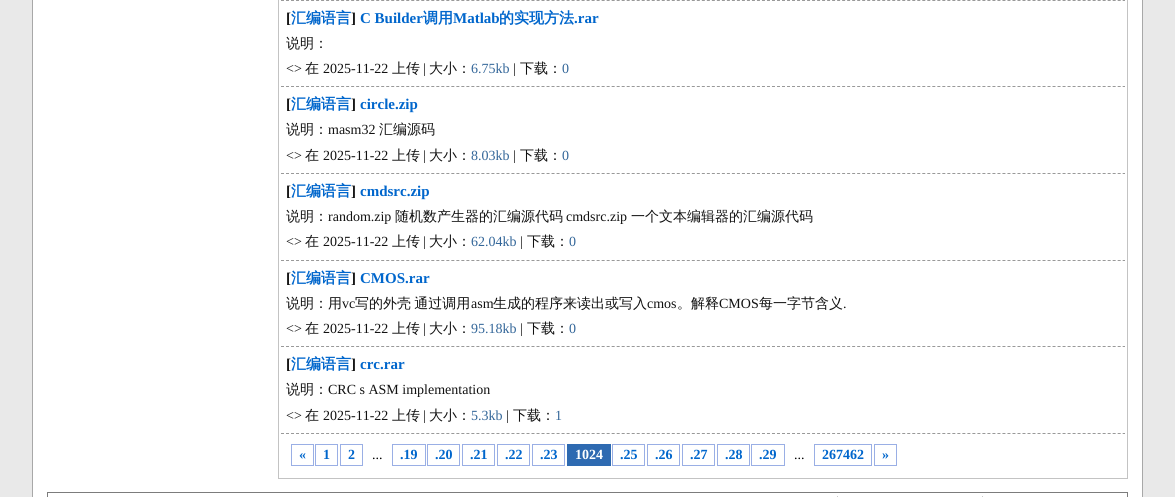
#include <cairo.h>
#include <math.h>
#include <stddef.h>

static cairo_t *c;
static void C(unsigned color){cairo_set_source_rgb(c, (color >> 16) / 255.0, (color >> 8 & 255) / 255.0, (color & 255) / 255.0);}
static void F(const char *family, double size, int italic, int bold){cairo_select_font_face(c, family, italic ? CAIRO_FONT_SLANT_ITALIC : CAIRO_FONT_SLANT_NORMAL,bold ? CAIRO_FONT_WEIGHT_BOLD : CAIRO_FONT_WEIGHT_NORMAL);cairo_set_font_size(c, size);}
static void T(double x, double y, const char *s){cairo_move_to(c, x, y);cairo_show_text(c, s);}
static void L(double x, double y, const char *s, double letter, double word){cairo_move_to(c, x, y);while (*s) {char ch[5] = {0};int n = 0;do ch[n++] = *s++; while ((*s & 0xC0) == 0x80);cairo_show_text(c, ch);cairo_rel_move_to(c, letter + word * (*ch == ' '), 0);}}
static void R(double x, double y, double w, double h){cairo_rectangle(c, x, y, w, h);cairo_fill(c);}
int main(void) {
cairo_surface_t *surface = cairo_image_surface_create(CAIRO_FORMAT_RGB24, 1175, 497);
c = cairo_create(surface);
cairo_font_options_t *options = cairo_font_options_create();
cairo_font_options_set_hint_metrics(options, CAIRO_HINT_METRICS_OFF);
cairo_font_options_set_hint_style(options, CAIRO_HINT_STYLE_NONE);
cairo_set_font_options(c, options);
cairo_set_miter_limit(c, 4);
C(0xe9e9e9);
cairo_paint(c);
C(0xffffff);
cairo_rectangle(c,32.5,-.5,1110,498);
cairo_fill_preserve(c);
C(0xa8a8a8);
cairo_set_line_width(c,1);
cairo_stroke(c);
cairo_rectangle(c,278.5,-.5,849,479);
C(0xc3c3c3);
cairo_stroke(c);
cairo_new_path(c);
cairo_move_to(c,281,.5);
cairo_line_to(c,1125,.5);
C(0x999999);
cairo_set_dash(c,(double[]){3,2.01},2,0);
cairo_stroke(c);
cairo_new_path(c);
cairo_move_to(c,281,86.5);
cairo_line_to(c,1125,86.5);
cairo_stroke(c);
F("Liberation Serif",15,0,1);
C(0x111111);
T(286,23,"[");
F("WenQuanYi Zen Hei",15,0,1);
C(0x0066cc);
T(291,23,"汇编语言");
F("Liberation Serif",15,0,1);
C(0x111111);
T(351,23,"]");
C(0x0066cc);
T(360,23,"C Builder");
F("WenQuanYi Zen Hei",15,0,1);
T(423,23,"调用");
F("Liberation Serif",15,0,1);
T(453,23,"Matlab");
F("WenQuanYi Zen Hei",15,0,1);
T(499,23,"的实现方法");
F("Liberation Serif",15,0,1);
T(574,23,".rar");
F("WenQuanYi Zen Hei Medium",14,0,0);
C(0x111111);
T(286,48,"说明：");
F("Liberation Serif",14,0,0);
T(286,73,"<>");
F("WenQuanYi Zen Hei Medium",14,0,0);
T(305,73,"在");
F("Liberation Serif",14,0,0);
T(323,73,"2025-11-22");
F("WenQuanYi Zen Hei Medium",14,0,0);
T(392,73,"上传");
F("Liberation Serif",14,0,0);
T(423,73,"|");
F("WenQuanYi Zen Hei Medium",14,0,0);
T(429,73,"大小：");
F("Liberation Serif",14,0,0);
C(0x336699);
T(471,73,"6.75kb");
C(0x111111);
T(513,73,"|");
F("WenQuanYi Zen Hei Medium",14,0,0);
T(520,73,"下载：");
F("Liberation Serif",14,0,0);
C(0x336699);
T(562,73,"0");
cairo_new_path(c);
cairo_move_to(c,281,173.5);
cairo_line_to(c,1125,173.5);
C(0x999999);
cairo_stroke(c);
F("Liberation Serif",15,0,1);
C(0x111111);
T(286,109,"[");
F("WenQuanYi Zen Hei",15,0,1);
C(0x0066cc);
T(291,109,"汇编语言");
F("Liberation Serif",15,0,1);
C(0x111111);
T(351,109,"]");
C(0x0066cc);
T(360,109,"circle.zip");
F("WenQuanYi Zen Hei Medium",14,0,0);
C(0x111111);
T(286,134,"说明：");
F("Liberation Serif",14,0,0);
T(328,134,"masm32");
F("WenQuanYi Zen Hei Medium",14,0,0);
T(379,134,"汇编源码");
F("Liberation Serif",14,0,0);
T(286,160,"<>");
F("WenQuanYi Zen Hei Medium",14,0,0);
T(305,160,"在");
F("Liberation Serif",14,0,0);
T(323,160,"2025-11-22");
F("WenQuanYi Zen Hei Medium",14,0,0);
T(392,160,"上传");
F("Liberation Serif",14,0,0);
T(423,160,"|");
F("WenQuanYi Zen Hei Medium",14,0,0);
T(429,160,"大小：");
F("Liberation Serif",14,0,0);
C(0x336699);
T(471,160,"8.03kb");
C(0x111111);
T(513,160,"|");
F("WenQuanYi Zen Hei Medium",14,0,0);
T(520,160,"下载：");
F("Liberation Serif",14,0,0);
C(0x336699);
T(562,160,"0");
cairo_new_path(c);
cairo_move_to(c,281,260.5);
cairo_line_to(c,1125,260.5);
C(0x999999);
cairo_stroke(c);
F("Liberation Serif",15,0,1);
C(0x111111);
T(286,196,"[");
F("WenQuanYi Zen Hei",15,0,1);
C(0x0066cc);
T(291,196,"汇编语言");
F("Liberation Serif",15,0,1);
C(0x111111);
T(351,196,"]");
C(0x0066cc);
T(360,196,"cmdsrc.zip");
F("WenQuanYi Zen Hei Medium",14,0,0);
C(0x111111);
T(286,221,"说明：");
F("Liberation Serif",14,0,0);
T(328,221,"random.zip");
F("WenQuanYi Zen Hei Medium",14,0,0);
T(395,221,"随机数产生器的汇编源代码");
F("Liberation Serif",14,0,0);
T(566,221,"cmdsrc.zip");
F("WenQuanYi Zen Hei Medium",14,0,0);
T(631,221,"一个文本编辑器的汇编源代码");
F("Liberation Serif",14,0,0);
T(286,246,"<>");
F("WenQuanYi Zen Hei Medium",14,0,0);
T(305,246,"在");
F("Liberation Serif",14,0,0);
T(323,246,"2025-11-22");
F("WenQuanYi Zen Hei Medium",14,0,0);
T(392,246,"上传");
F("Liberation Serif",14,0,0);
T(423,246,"|");
F("WenQuanYi Zen Hei Medium",14,0,0);
T(429,246,"大小：");
F("Liberation Serif",14,0,0);
C(0x336699);
T(471,246,"62.04kb");
C(0x111111);
T(520,246,"|");
F("WenQuanYi Zen Hei Medium",14,0,0);
T(527,246,"下载：");
F("Liberation Serif",14,0,0);
C(0x336699);
T(569,246,"0");
cairo_new_path(c);
cairo_move_to(c,281,346.5);
cairo_line_to(c,1125,346.5);
C(0x999999);
cairo_stroke(c);
F("Liberation Serif",15,0,1);
C(0x111111);
T(286,283,"[");
F("WenQuanYi Zen Hei",15,0,1);
C(0x0066cc);
T(291,283,"汇编语言");
F("Liberation Serif",15,0,1);
C(0x111111);
T(351,283,"]");
C(0x0066cc);
T(360,283,"CMOS.rar");
F("WenQuanYi Zen Hei Medium",14,0,0);
C(0x111111);
T(286,308,"说明：用");
F("Liberation Serif",14,0,0);
T(342,308,"vc");
F("WenQuanYi Zen Hei Medium",14,0,0);
L(355,308,"写的外壳 通过调用",0,-1);
F("Liberation Serif",14,0,0);
T(471,308,"asm");
F("WenQuanYi Zen Hei Medium",14,0,0);
T(493,308,"生成的程序来读出或写入");
F("Liberation Serif",14,0,0);
T(647,308,"cmos");
F("WenQuanYi Zen Hei Medium",14,0,0);
T(677,308,"。解释");
F("Liberation Serif",14,0,0);
T(719,308,"CMOS");
F("WenQuanYi Zen Hei Medium",14,0,0);
T(759,308,"每一字节含义");
F("Liberation Serif",14,0,0);
T(843,308,".");
T(286,333,"<>");
F("WenQuanYi Zen Hei Medium",14,0,0);
T(305,333,"在");
F("Liberation Serif",14,0,0);
T(323,333,"2025-11-22");
F("WenQuanYi Zen Hei Medium",14,0,0);
T(392,333,"上传");
F("Liberation Serif",14,0,0);
T(423,333,"|");
F("WenQuanYi Zen Hei Medium",14,0,0);
T(429,333,"大小：");
F("Liberation Serif",14,0,0);
C(0x336699);
T(471,333,"95.18kb");
C(0x111111);
T(520,333,"|");
F("WenQuanYi Zen Hei Medium",14,0,0);
T(527,333,"下载：");
F("Liberation Serif",14,0,0);
C(0x336699);
T(569,333,"0");
cairo_new_path(c);
cairo_move_to(c,281,433.5);
cairo_line_to(c,1125,433.5);
C(0x999999);
cairo_stroke(c);
F("Liberation Serif",15,0,1);
C(0x111111);
T(286,369,"[");
F("WenQuanYi Zen Hei",15,0,1);
C(0x0066cc);
T(291,369,"汇编语言");
F("Liberation Serif",15,0,1);
C(0x111111);
T(351,369,"]");
C(0x0066cc);
T(360,369,"crc.rar");
F("WenQuanYi Zen Hei Medium",14,0,0);
C(0x111111);
T(286,394,"说明：");
F("Liberation Serif",14,0,0);
T(328,394,"CRC s ASM implementation");
T(286,420,"<>");
F("WenQuanYi Zen Hei Medium",14,0,0);
T(305,420,"在");
F("Liberation Serif",14,0,0);
T(323,420,"2025-11-22");
F("WenQuanYi Zen Hei Medium",14,0,0);
T(392,420,"上传");
F("Liberation Serif",14,0,0);
T(423,420,"|");
F("WenQuanYi Zen Hei Medium",14,0,0);
T(429,420,"大小：");
F("Liberation Serif",14,0,0);
C(0x336699);
T(471,420,"5.3kb");
C(0x111111);
T(506,420,"|");
F("WenQuanYi Zen Hei Medium",14,0,0);
T(513,420,"下载：");
F("Liberation Serif",14,0,0);
C(0x336699);
T(555,420,"1");
cairo_rectangle(c,291.5,444.5,22,21);
C(0x9aafe5);
cairo_set_dash(c,NULL,0,0);
cairo_stroke(c);
F("Liberation Serif",14,0,1);
C(0x0066cc);
T(299,459,"«");
cairo_rectangle(c,315.5,444.5,22,21);
C(0x9aafe5);
cairo_stroke(c);
C(0x0066cc);
T(323,459,"1");
cairo_rectangle(c,340.5,444.5,22,21);
C(0x9aafe5);
cairo_stroke(c);
C(0x0066cc);
T(348,459,"2");
F("Liberation Serif",14,0,0);
C(0x000000);
T(372,459,"...");
cairo_rectangle(c,392.5,444.5,33,21);
C(0x9aafe5);
cairo_stroke(c);
F("Liberation Serif",14,0,1);
C(0x0066cc);
T(400,459,".19");
cairo_rectangle(c,427.5,444.5,32,21);
C(0x9aafe5);
cairo_stroke(c);
C(0x0066cc);
T(435,459,".20");
cairo_rectangle(c,462.5,444.5,32,21);
C(0x9aafe5);
cairo_stroke(c);
C(0x0066cc);
T(470,459,".21");
cairo_rectangle(c,497.5,444.5,32,21);
C(0x9aafe5);
cairo_stroke(c);
C(0x0066cc);
T(505,459,".22");
cairo_rectangle(c,532.5,444.5,32,21);
C(0x9aafe5);
cairo_stroke(c);
C(0x0066cc);
T(540,459,".23");
C(0x2e6ab1);
R(567,444,44,22);
C(0xffffff);
T(575,459,"1024");
cairo_rectangle(c,612.5,444.5,32,21);
C(0x9aafe5);
cairo_stroke(c);
C(0x0066cc);
T(620,459,".25");
cairo_rectangle(c,647.5,444.5,32,21);
C(0x9aafe5);
cairo_stroke(c);
C(0x0066cc);
T(655,459,".26");
cairo_rectangle(c,682.5,444.5,32,21);
C(0x9aafe5);
cairo_stroke(c);
C(0x0066cc);
T(690,459,".27");
cairo_rectangle(c,717.5,444.5,32,21);
C(0x9aafe5);
cairo_stroke(c);
C(0x0066cc);
T(725,459,".28");
cairo_rectangle(c,751.5,444.5,33,21);
C(0x9aafe5);
cairo_stroke(c);
C(0x0066cc);
T(759,459,".29");
F("Liberation Serif",14,0,0);
C(0x000000);
T(794,459,"...");
cairo_rectangle(c,814.5,444.5,57,21);
C(0x9aafe5);
cairo_stroke(c);
F("Liberation Serif",14,0,1);
C(0x0066cc);
T(822,459,"267462");
cairo_rectangle(c,874.5,444.5,22,21);
C(0x9aafe5);
cairo_stroke(c);
C(0x0066cc);
T(882,459,"»");
cairo_rectangle(c,47.5,492.5,1080,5);
C(0x7c7c7c);
cairo_stroke(c);
C(0xcbcbcb);
R(837,496,1,1);
R(982,496,1,1);
cairo_surface_write_to_png(surface, "o.png");
cairo_font_options_destroy(options);
cairo_destroy(c);
cairo_surface_destroy(surface);
return 0;
}
